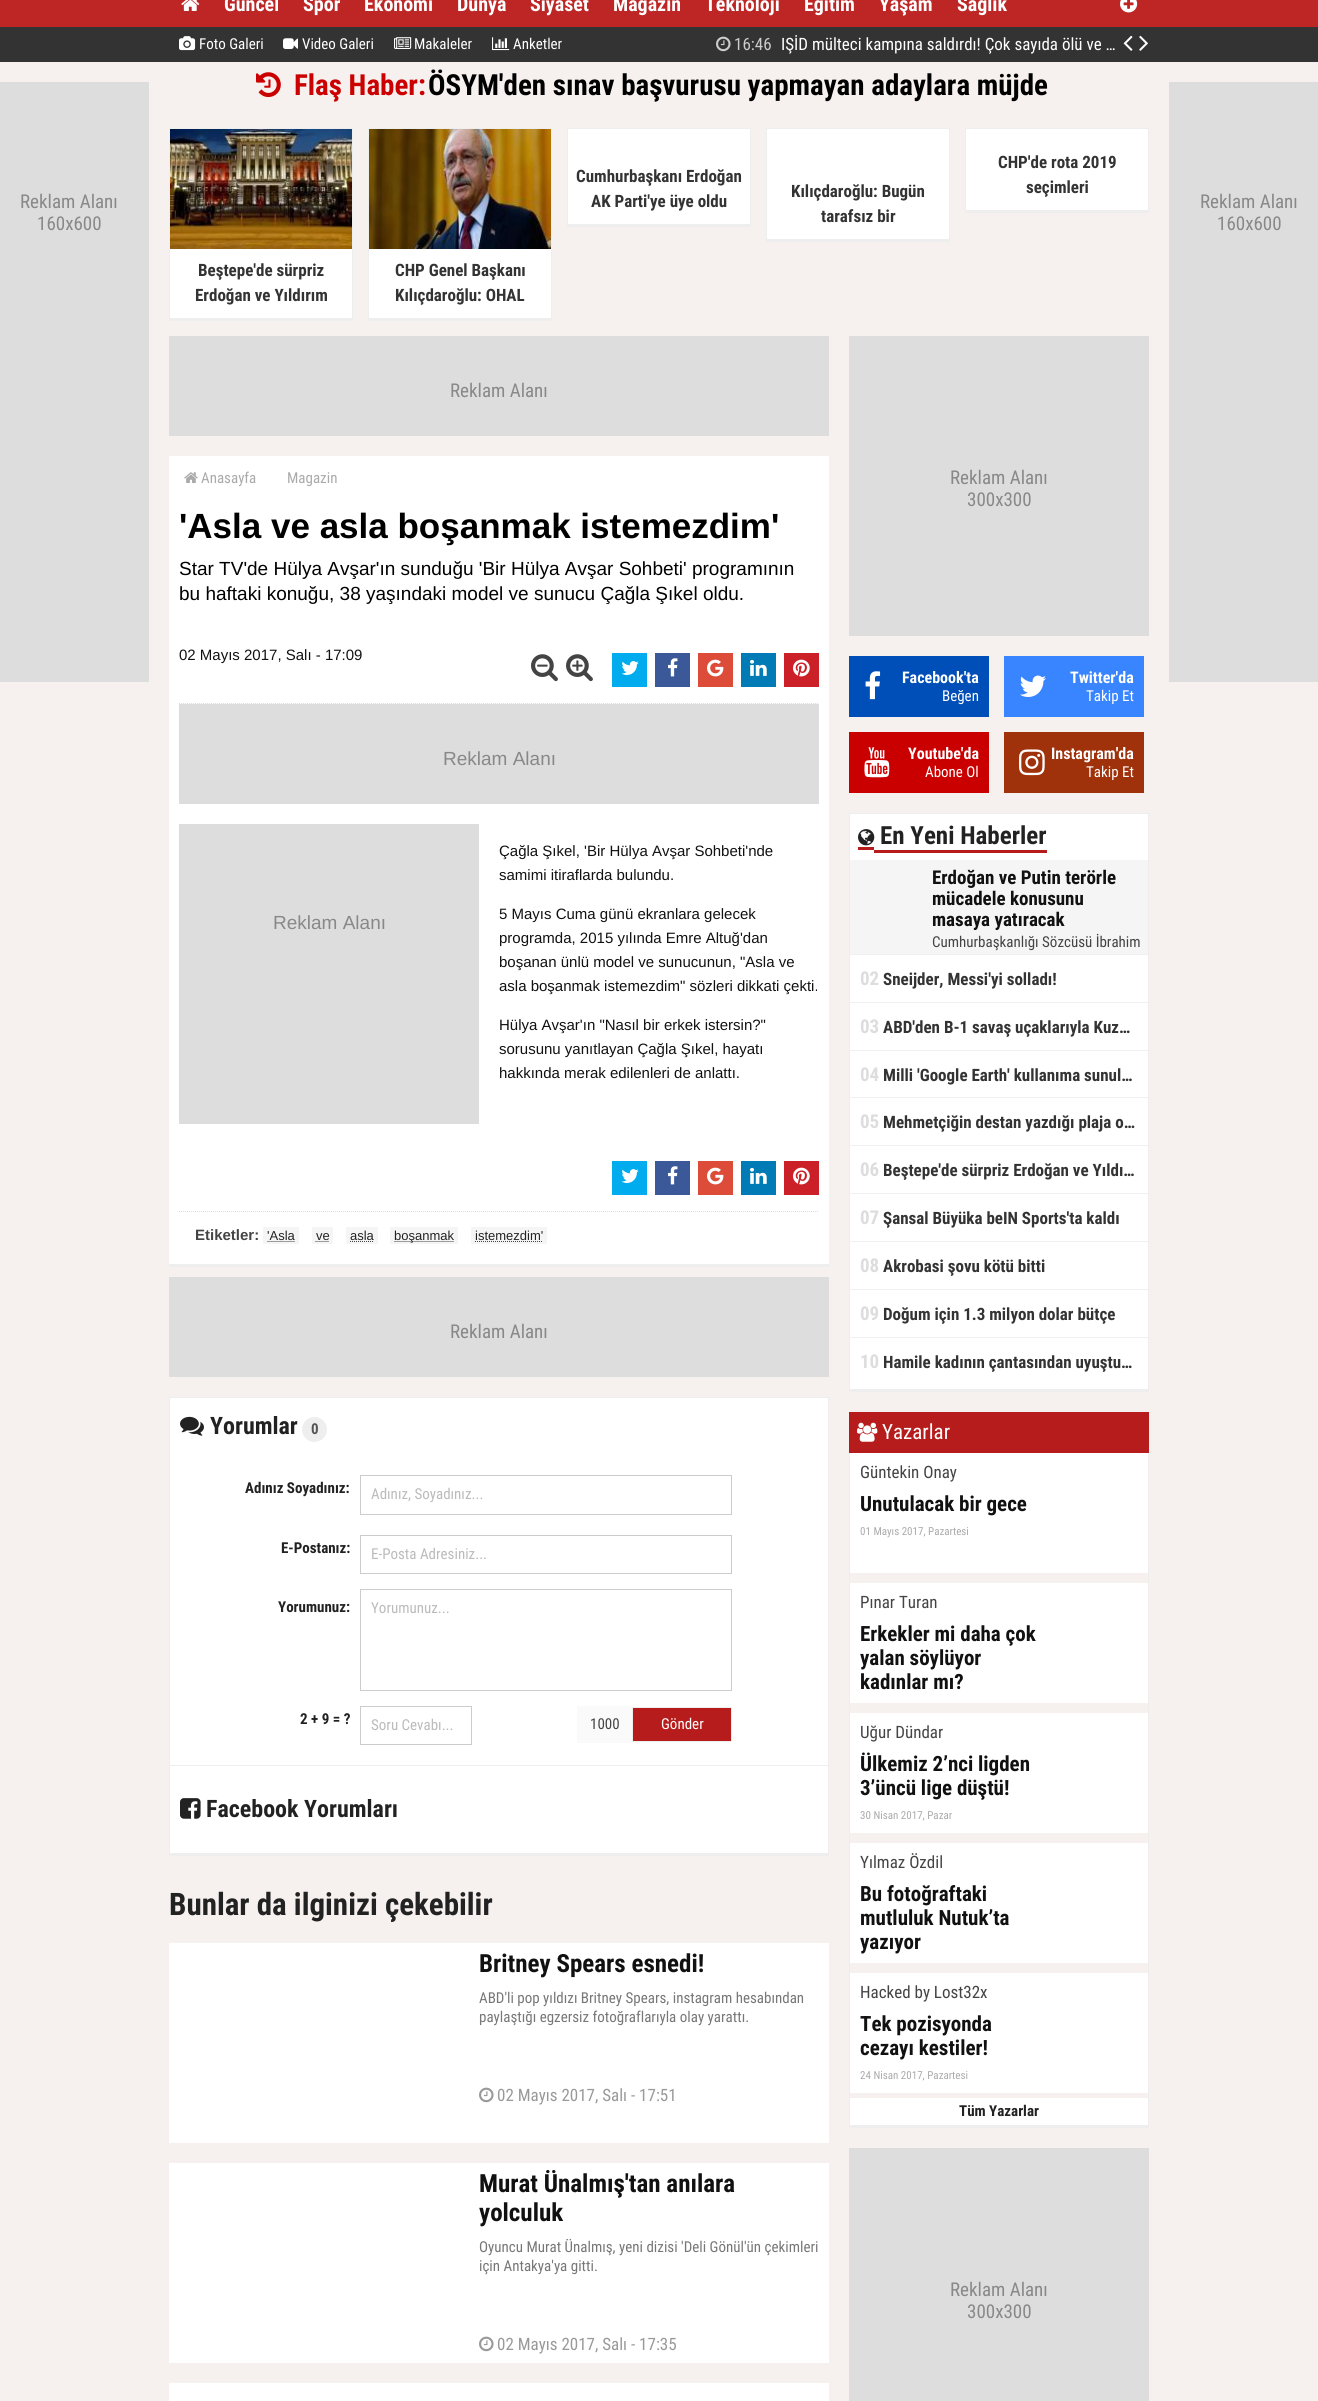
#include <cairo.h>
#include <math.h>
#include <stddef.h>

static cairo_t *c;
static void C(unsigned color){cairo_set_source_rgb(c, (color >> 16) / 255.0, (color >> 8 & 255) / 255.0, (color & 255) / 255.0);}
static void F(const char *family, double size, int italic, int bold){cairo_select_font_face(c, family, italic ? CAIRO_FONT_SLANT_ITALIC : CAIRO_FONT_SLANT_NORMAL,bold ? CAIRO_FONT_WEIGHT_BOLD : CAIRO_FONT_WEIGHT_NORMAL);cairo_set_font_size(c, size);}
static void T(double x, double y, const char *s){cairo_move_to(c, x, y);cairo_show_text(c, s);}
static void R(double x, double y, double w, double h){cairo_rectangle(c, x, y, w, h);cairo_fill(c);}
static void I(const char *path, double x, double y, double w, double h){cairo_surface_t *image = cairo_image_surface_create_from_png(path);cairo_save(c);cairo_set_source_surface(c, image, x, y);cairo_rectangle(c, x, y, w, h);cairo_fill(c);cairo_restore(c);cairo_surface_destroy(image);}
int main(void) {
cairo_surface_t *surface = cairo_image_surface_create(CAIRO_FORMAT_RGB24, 1318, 2401);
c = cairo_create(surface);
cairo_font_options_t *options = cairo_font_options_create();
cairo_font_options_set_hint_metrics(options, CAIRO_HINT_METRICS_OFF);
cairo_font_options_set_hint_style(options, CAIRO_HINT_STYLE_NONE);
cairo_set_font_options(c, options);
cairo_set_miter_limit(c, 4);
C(0xf6f1ef);
cairo_paint(c);
C(0xbe2626);
R(0,0,1318,27);
I("1.png",181,0,19,11);
F("Roboto Condensed",20,0,1);
C(0xffffff);
T(224,11,"Güncel");
T(303,11,"Spor");
T(364,11,"Ekonomi");
T(457,11,"Dünya");
T(530,11,"Siyaset");
T(613,11,"Magazin");
T(705,11,"Teknoloji");
T(804,11,"Eğitim");
T(879,11,"Yaşam");
T(957,11,"Sağlık");
I("2.png",1120,0,18,13);
C(0x333333);
R(0,27,1318,35);
I("3.png",179,36,17,15);
F("Roboto Condensed",15,0,0);
C(0xffffff);
T(199,49,"Foto Galeri");
I("4.png",283,38,15,11);
T(302,49,"Video Galeri");
I("5.png",394,37,18,12);
T(414,49,"Makaleler");
I("6.png",492,37,18,14);
T(513,49,"Anketler");
I("7.png",716,36,15,16);
F("Roboto Condensed",17,0,0);
C(0xcccccc);
T(734,50,"16:46");
C(0xffffff);
T(781,50,"IŞİD mülteci kampına saldırdı! Çok sayıda ölü ve …");
I("8.png",1123,35,10,16);
I("9.png",1139,35,9,16);
I("10.png",256,72,25,26);
F("Roboto Condensed",29,0,1);
C(0xcb0000);
T(294,95,"Flaş Haber:");
C(0x000000);
T(428,95,"ÖSYM'den sınav başvurusu yapmayan adaylara müjde");
C(0xdddddd);
R(0,82,149,600);
F("Roboto Condensed",19,0,0);
C(0x888888);
T(20,208,"Reklam Alanı");
T(37,230,"160x600");
C(0xffffff);
R(568,129,182,95);
C(0xeeeeee);
R(567,128,184,1);
R(750,128,1,99);
R(567,224,184,3);
R(567,128,1,99);
F("Roboto Condensed",17,0,1);
C(0x333333);
T(576,182,"Cumhurbaşkanı Erdoğan");
T(591,207,"AK Parti'ye üye oldu");
C(0xffffff);
R(767,129,182,110);
C(0xeeeeee);
R(766,128,184,1);
R(949,128,1,114);
R(766,239,184,3);
R(766,128,1,114);
C(0x333333);
T(791,197,"Kılıçdaroğlu: Bugün");
T(821,222,"tarafsız bir");
C(0xffffff);
R(966,129,182,81);
C(0xeeeeee);
R(965,128,184,1);
R(1148,128,1,85);
R(965,210,184,3);
R(965,128,1,85);
C(0x333333);
T(998,168,"CHP'de rota 2019");
T(1026,193,"seçimleri");
C(0xffffff);
R(170,249,182,69);
C(0xeeeeee);
R(169,128,184,1);
R(352,128,1,193);
R(169,318,184,3);
R(169,128,1,193);
I("11.png",170,129,182,120);
C(0x333333);
T(198,276,"Beştepe'de sürpriz");
T(195,301,"Erdoğan ve Yıldırım");
C(0xffffff);
R(369,249,182,69);
C(0xeeeeee);
R(368,128,184,1);
R(551,128,1,193);
R(368,318,184,3);
R(368,128,1,193);
I("12.png",369,129,182,120);
C(0x333333);
T(395,276,"CHP Genel Başkanı");
T(395,301,"Kılıçdaroğlu: OHAL");
C(0xdddddd);
R(1169,82,149,600);
F("Roboto Condensed",19,0,0);
C(0x888888);
T(1200,208,"Reklam Alanı");
T(1217,230,"160x600");
C(0xdddddd);
R(169,336,660,100);
C(0x888888);
T(450,397,"Reklam Alanı");
C(0xffffff);
R(169,456,660,808);
I("13.png",184,472,14,11);
F("Roboto Condensed",15,0,0);
C(0xaaaaaa);
T(201,483,"Anasayfa");
T(287,483,"Magazin");
C(0xeeeeee);
R(169,1264,660,3);
F("Liberation Sans",35,0,1);
C(0x000000);
T(179,538,"'Asla ve asla boşanmak istemezdim'");
F("Liberation Sans",19,0,0);
T(179,575,"Star TV'de Hülya Avşar'ın sunduğu 'Bir Hülya Avşar Sohbeti' programının");
T(179,600,"bu haftaki konuğu, 38 yaşındaki model ve sunucu Çağla Şıkel oldu.");
cairo_new_path(c);
cairo_move_to(c,179,703.5);
cairo_line_to(c,819,703.5);
C(0xdddddd);
cairo_set_line_width(c,1);
cairo_set_dash(c,(double[]){1,1},2,0);
cairo_stroke(c);
F("Liberation Sans",15,0,0);
C(0x111111);
T(179,660,"02 Mayıs 2017, Salı - 17:09");
I("14.png",531,654,27,28);
I("15.png",566,654,27,28);
C(0x00aced);
R(612,653,35,34);
I("16.png",621,661,18,14);
C(0x3b5998);
R(655,653,35,34);
I("17.png",668,658,10,19);
C(0xdd4b39);
R(698,653,35,34);
I("18.png",707,659,17,18);
C(0x007bb6);
R(741,653,35,34);
I("19.png",750,659,17,17);
C(0xcb2027);
R(784,653,35,34);
I("20.png",793,659,17,18);
C(0xdddddd);
R(179,704,640,100);
F("Liberation Sans",19,0,0);
C(0x888888);
T(443,765,"Reklam Alanı");
C(0xdddddd);
R(179,824,300,300);
C(0x888888);
T(273,929,"Reklam Alanı");
F("Liberation Sans",15,0,0);
C(0x111111);
T(499,856,"Çağla Şıkel, 'Bir Hülya Avşar Sohbeti'nde");
T(499,880,"samimi itiraflarda bulundu.");
T(499,919,"5 Mayıs Cuma günü ekranlara gelecek");
T(499,943,"programda, 2015 yılında Emre Altuğ'dan");
T(499,967,"boşanan ünlü model ve sunucunun, \"Asla ve");
T(499,991,"asla boşanmak istemezdim\" sözleri dikkati çekti.");
T(499,1030,"Hülya Avşar'ın \"Nasıl bir erkek istersin?\"");
T(499,1054,"sorusunu yanıtlayan Çağla Şıkel, hayatı");
T(499,1078,"hakkında merak edilenleri de anlattı.");
cairo_new_path(c);
cairo_move_to(c,179,1211.5);
cairo_line_to(c,819,1211.5);
C(0xdddddd);
cairo_stroke(c);
C(0x00aced);
R(612,1161,35,34);
I("16.png",621,1169,18,14);
C(0x3b5998);
R(655,1161,35,34);
I("17.png",668,1166,10,19);
C(0xdd4b39);
R(698,1161,35,34);
I("18.png",707,1167,17,18);
C(0x007bb6);
R(741,1161,35,34);
I("19.png",750,1167,17,17);
C(0xcb2027);
R(784,1161,35,34);
I("20.png",793,1167,17,18);
F("Liberation Sans",15,0,1);
C(0x444444);
T(195,1240,"Etiketler:");
C(0xf5f5f5);
R(263,1227,36,17);
F("Liberation Sans",13,0,0);
C(0x222222);
T(267,1240,"'Asla");
cairo_new_path(c);
cairo_move_to(c,267.5,1241.5);
cairo_line_to(c,295,1241.5);
C(0x444444);
cairo_stroke(c);
C(0xf5f5f5);
R(312,1227,21,17);
C(0x222222);
T(316,1240,"ve");
cairo_new_path(c);
cairo_move_to(c,315.5,1241.5);
cairo_line_to(c,329.5,1241.5);
C(0x444444);
cairo_stroke(c);
C(0xf5f5f5);
R(346,1227,32,17);
C(0x222222);
T(350,1240,"asla");
cairo_new_path(c);
cairo_move_to(c,350,1241.5);
cairo_line_to(c,374,1241.5);
C(0x444444);
cairo_stroke(c);
C(0xf5f5f5);
R(390,1227,68,17);
cairo_new_path(c);
cairo_move_to(c,394.5,1241.5);
cairo_line_to(c,454.5,1241.5);
C(0x444444);
cairo_stroke(c);
C(0x222222);
T(394,1240,"boşanmak");
C(0xf5f5f5);
R(471,1227,76,17);
C(0x222222);
T(475,1240,"istemezdim'");
cairo_new_path(c);
cairo_move_to(c,475,1241.5);
cairo_line_to(c,543,1241.5);
C(0x444444);
cairo_stroke(c);
C(0xdddddd);
R(169,1277,660,100);
F("Roboto Condensed",19,0,0);
C(0x888888);
T(450,1338,"Reklam Alanı");
C(0xffffff);
R(170,1398,658,455);
C(0xeeeeee);
R(169,1397,660,1);
R(828,1397,1,459);
R(169,1853,660,3);
R(169,1397,1,459);
I("21.png",180,1416,24,20);
F("Roboto Condensed",24,0,1);
C(0x222222);
T(210,1434,"Yorumlar");
C(0xeeeeee);
cairo_new_path(c);
cairo_arc(c,314.5,1429.5,12.5,0,2 * M_PI);
cairo_fill(c);
F("Roboto Condensed",15,0,1);
C(0x555555);
T(311,1434,"0");
C(0xeeeeee);
R(170,1765,658,1);
C(0x222222);
T(245,1493,"Adınız Soyadınız:");
cairo_rectangle(c,360.5,1475.5,371,39);
C(0xcccccc);
cairo_set_dash(c,NULL,0,0);
cairo_stroke(c);
F("Roboto Condensed",15,0,0);
C(0xbbbbbb);
T(371,1499,"Adınız, Soyadınız...");
F("Roboto Condensed",15,0,1);
C(0x222222);
T(281,1553,"E-Postanız:");
cairo_rectangle(c,360.5,1535.5,371,38);
C(0xcccccc);
cairo_stroke(c);
F("Roboto Condensed",15,0,0);
C(0xbbbbbb);
T(371,1559,"E-Posta Adresiniz...");
F("Roboto Condensed",15,0,1);
C(0x222222);
T(278,1612,"Yorumunuz:");
cairo_rectangle(c,360.5,1589.5,371,101);
C(0xcccccc);
cairo_stroke(c);
F("Roboto Condensed",15,0,0);
C(0xbbbbbb);
T(371,1613,"Yorumunuz...");
F("Roboto Condensed",15,0,1);
C(0x222222);
T(300,1724,"2 + 9 = ?");
cairo_rectangle(c,360.5,1706.5,111,38);
C(0xcccccc);
cairo_stroke(c);
F("Roboto Condensed",15,0,0);
C(0xbbbbbb);
T(371,1730,"Soru Cevabı...");
C(0xfafafa);
R(577,1706,55,37);
C(0x444444);
T(590,1729,"1000");
C(0xb71c1c);
cairo_rectangle(c,632.5,1707.5,99,34);
cairo_fill_preserve(c);
C(0xeeeeee);
cairo_stroke(c);
C(0xffffff);
T(661,1729,"Gönder");
I("22.png",180,1798,21,21);
F("Roboto Condensed",24,0,1);
C(0x222222);
T(206,1817,"Facebook Yorumları");
F("Roboto Condensed",31,0,1);
T(169,1915,"Bunlar da ilginizi çekebilir");
C(0xffffff);
R(169,1943,660,200);
F("Roboto Condensed",25,0,1);
C(0x111111);
T(479,1972,"Britney Spears esnedi!");
F("Roboto Condensed",15,0,0);
C(0x777777);
T(479,2003,"ABD'li pop yıldızı Britney Spears, instagram hesabından");
T(479,2022,"paylaştığı egzersiz fotoğraflarıyla olay yarattı.");
I("23.png",479,2087,15,16);
F("Roboto Condensed",17,0,0);
C(0x999999);
T(497,2101,"02 Mayıs 2017, Salı - 17:51");
C(0xffffff);
R(169,2163,660,200);
F("Roboto Condensed",25,0,1);
C(0x111111);
T(479,2192,"Murat Ünalmış'tan anılara");
T(479,2221,"yolculuk");
F("Roboto Condensed",15,0,0);
C(0x777777);
T(479,2252,"Oyuncu Murat Ünalmış, yeni dizisi 'Deli Gönül'ün çekimleri");
T(479,2271,"için Antakya'ya gitti.");
I("23.png",479,2336,15,16);
F("Roboto Condensed",17,0,0);
C(0x999999);
T(497,2350,"02 Mayıs 2017, Salı - 17:35");
C(0xffffff);
R(169,2383,660,18);
C(0xdddddd);
R(849,336,300,300);
F("Roboto Condensed",19,0,0);
C(0x888888);
T(950,484,"Reklam Alanı");
T(967,506,"300x300");
C(0x004eb8);
R(849,656,140,61);
I("24.png",865,671,16,29);
F("Roboto Condensed",16,0,1);
C(0xffffff);
T(902,683,"Facebook'ta");
F("Roboto Condensed",15,0,0);
T(942,701,"Beğen");
C(0x3985ff);
R(1004,656,140,61);
I("25.png",1020,675,26,22);
F("Roboto Condensed",16,0,1);
C(0xffffff);
T(1070,683,"Twitter'da");
F("Roboto Condensed",15,0,0);
T(1086,701,"Takip Et");
C(0xca0000);
R(849,732,140,61);
I("26.png",864,747,26,31);
F("Roboto Condensed",16,0,1);
C(0xffffff);
T(908,759,"Youtube'da");
F("Roboto Condensed",15,0,0);
T(925,777,"Abone Ol");
C(0x9f310b);
R(1004,732,140,61);
I("27.png",1019,749,26,27);
F("Roboto Condensed",16,0,1);
C(0xffffff);
T(1051,759,"Instagram'da");
F("Roboto Condensed",15,0,0);
T(1086,777,"Takip Et");
R(850,814,298,575);
C(0xeeeeee);
R(849,813,300,1);
R(1148,813,1,579);
R(849,813,1,41);
C(0xb71c1c);
R(858,847,16,3);
R(874,850,173,3);
I("28.png",858,829,17,17);
F("Roboto Condensed",25,0,1);
C(0x222222);
T(880,844,"En Yeni Haberler");
C(0xeeeeee);
R(849,1389,300,3);
R(849,854,1,538);
C(0xf0f0f0);
R(850,954,298,1);
C(0xf5f5f5);
R(850,860,298,94);
F("Roboto Condensed",19,0,1);
C(0x111111);
T(932,884,"Erdoğan ve Putin terörle");
T(932,905,"mücadele konusunu");
T(932,926,"masaya yatıracak");
F("Roboto Condensed",15,0,0);
C(0x444444);
T(932,947,"Cumhurbaşkanlığı Sözcüsü İbrahim");
C(0xf0f0f0);
R(850,1002,298,1);
F("Roboto Condensed",19,0,1);
C(0xdddddd);
T(860,985,"02");
F("Roboto Condensed",17,0,1);
C(0x333333);
T(883,985,"Sneijder, Messi'yi solladı!");
C(0xf0f0f0);
R(850,1050,298,1);
F("Roboto Condensed",19,0,1);
C(0xdddddd);
T(860,1033,"03");
F("Roboto Condensed",17,0,1);
C(0x333333);
T(883,1033,"ABD'den B-1 savaş uçaklarıyla Kuz…");
C(0xf0f0f0);
R(850,1097,298,1);
F("Roboto Condensed",19,0,1);
C(0xdddddd);
T(860,1081,"04");
F("Roboto Condensed",17,0,1);
C(0x333333);
T(883,1081,"Milli 'Google Earth' kullanıma sunul…");
C(0xf0f0f0);
R(850,1145,298,1);
F("Roboto Condensed",19,0,1);
C(0xdddddd);
T(860,1128,"05");
F("Roboto Condensed",17,0,1);
C(0x333333);
T(883,1128,"Mehmetçiğin destan yazdığı plaja o…");
C(0xf0f0f0);
R(850,1193,298,1);
F("Roboto Condensed",19,0,1);
C(0xdddddd);
T(860,1176,"06");
F("Roboto Condensed",17,0,1);
C(0x333333);
T(883,1176,"Beştepe'de sürpriz Erdoğan ve Yıldı…");
C(0xf0f0f0);
R(850,1241,298,1);
F("Roboto Condensed",19,0,1);
C(0xdddddd);
T(860,1224,"07");
F("Roboto Condensed",17,0,1);
C(0x333333);
T(883,1224,"Şansal Büyüka beIN Sports'ta kaldı");
C(0xf0f0f0);
R(850,1289,298,1);
F("Roboto Condensed",19,0,1);
C(0xdddddd);
T(860,1272,"08");
F("Roboto Condensed",17,0,1);
C(0x333333);
T(883,1272,"Akrobasi şovu kötü bitti");
C(0xf0f0f0);
R(850,1337,298,1);
F("Roboto Condensed",19,0,1);
C(0xdddddd);
T(860,1320,"09");
F("Roboto Condensed",17,0,1);
C(0x333333);
T(883,1320,"Doğum için 1.3 milyon dolar bütçe");
F("Roboto Condensed",19,0,1);
C(0xdddddd);
T(860,1368,"10");
F("Roboto Condensed",17,0,1);
C(0x333333);
T(883,1368,"Hamile kadının çantasından uyuştu…");
C(0xb71c1c);
R(849,1412,300,41);
I("29.png",857,1422,21,20);
F("Roboto Condensed",21,0,0);
C(0xffffff);
T(882,1439,"Yazarlar");
C(0xeeeeee);
R(1148,1453,1,675);
R(849,2125,300,3);
R(849,1453,1,675);
C(0xffffff);
R(850,1453,298,120);
F("Roboto Condensed",17,0,0);
C(0x444444);
T(860,1478,"Güntekin Onay");
F("Roboto Condensed",21,0,1);
C(0x111111);
T(860,1511,"Unutulacak bir gece");
F("Roboto Condensed",11,0,0);
C(0xaaaaaa);
T(860,1535,"01 Mayıs 2017, Pazartesi");
C(0xffffff);
R(850,1583,298,120);
F("Roboto Condensed",17,0,0);
C(0x444444);
T(860,1608,"Pınar Turan");
F("Roboto Condensed",21,0,1);
C(0x111111);
T(860,1641,"Erkekler mi daha çok");
T(860,1665,"yalan söylüyor");
T(860,1689,"kadınlar mı?");
C(0xffffff);
R(850,1713,298,120);
F("Roboto Condensed",17,0,0);
C(0x444444);
T(860,1738,"Uğur Dündar");
F("Roboto Condensed",21,0,1);
C(0x111111);
T(860,1771,"Ülkemiz 2’nci ligden");
T(860,1795,"3’üncü lige düştü!");
F("Roboto Condensed",11,0,0);
C(0xaaaaaa);
T(860,1819,"30 Nisan 2017, Pazar");
C(0xffffff);
R(850,1843,298,120);
F("Roboto Condensed",17,0,0);
C(0x444444);
T(860,1868,"Yılmaz Özdil");
F("Roboto Condensed",21,0,1);
C(0x111111);
T(860,1901,"Bu fotoğraftaki");
T(860,1925,"mutluluk Nutuk’ta");
T(860,1949,"yazıyor");
C(0xffffff);
R(850,1973,298,120);
F("Roboto Condensed",17,0,0);
C(0x444444);
T(860,1998,"Hacked by Lost32x");
F("Roboto Condensed",21,0,1);
C(0x111111);
T(860,2031,"Tek pozisyonda");
T(860,2055,"cezayı kestiler!");
F("Roboto Condensed",11,0,0);
C(0xaaaaaa);
T(860,2079,"24 Nisan 2017, Pazartesi");
C(0xffffff);
R(850,2098,298,27);
F("Roboto Condensed",15,0,1);
C(0x222222);
T(959,2116,"Tüm Yazarlar");
C(0xdddddd);
R(849,2148,300,253);
F("Roboto Condensed",19,0,0);
C(0x888888);
T(950,2296,"Reklam Alanı");
T(967,2318,"300x300");
cairo_surface_write_to_png(surface, "o.png");
cairo_font_options_destroy(options);
cairo_destroy(c);
cairo_surface_destroy(surface);
return 0;
}
